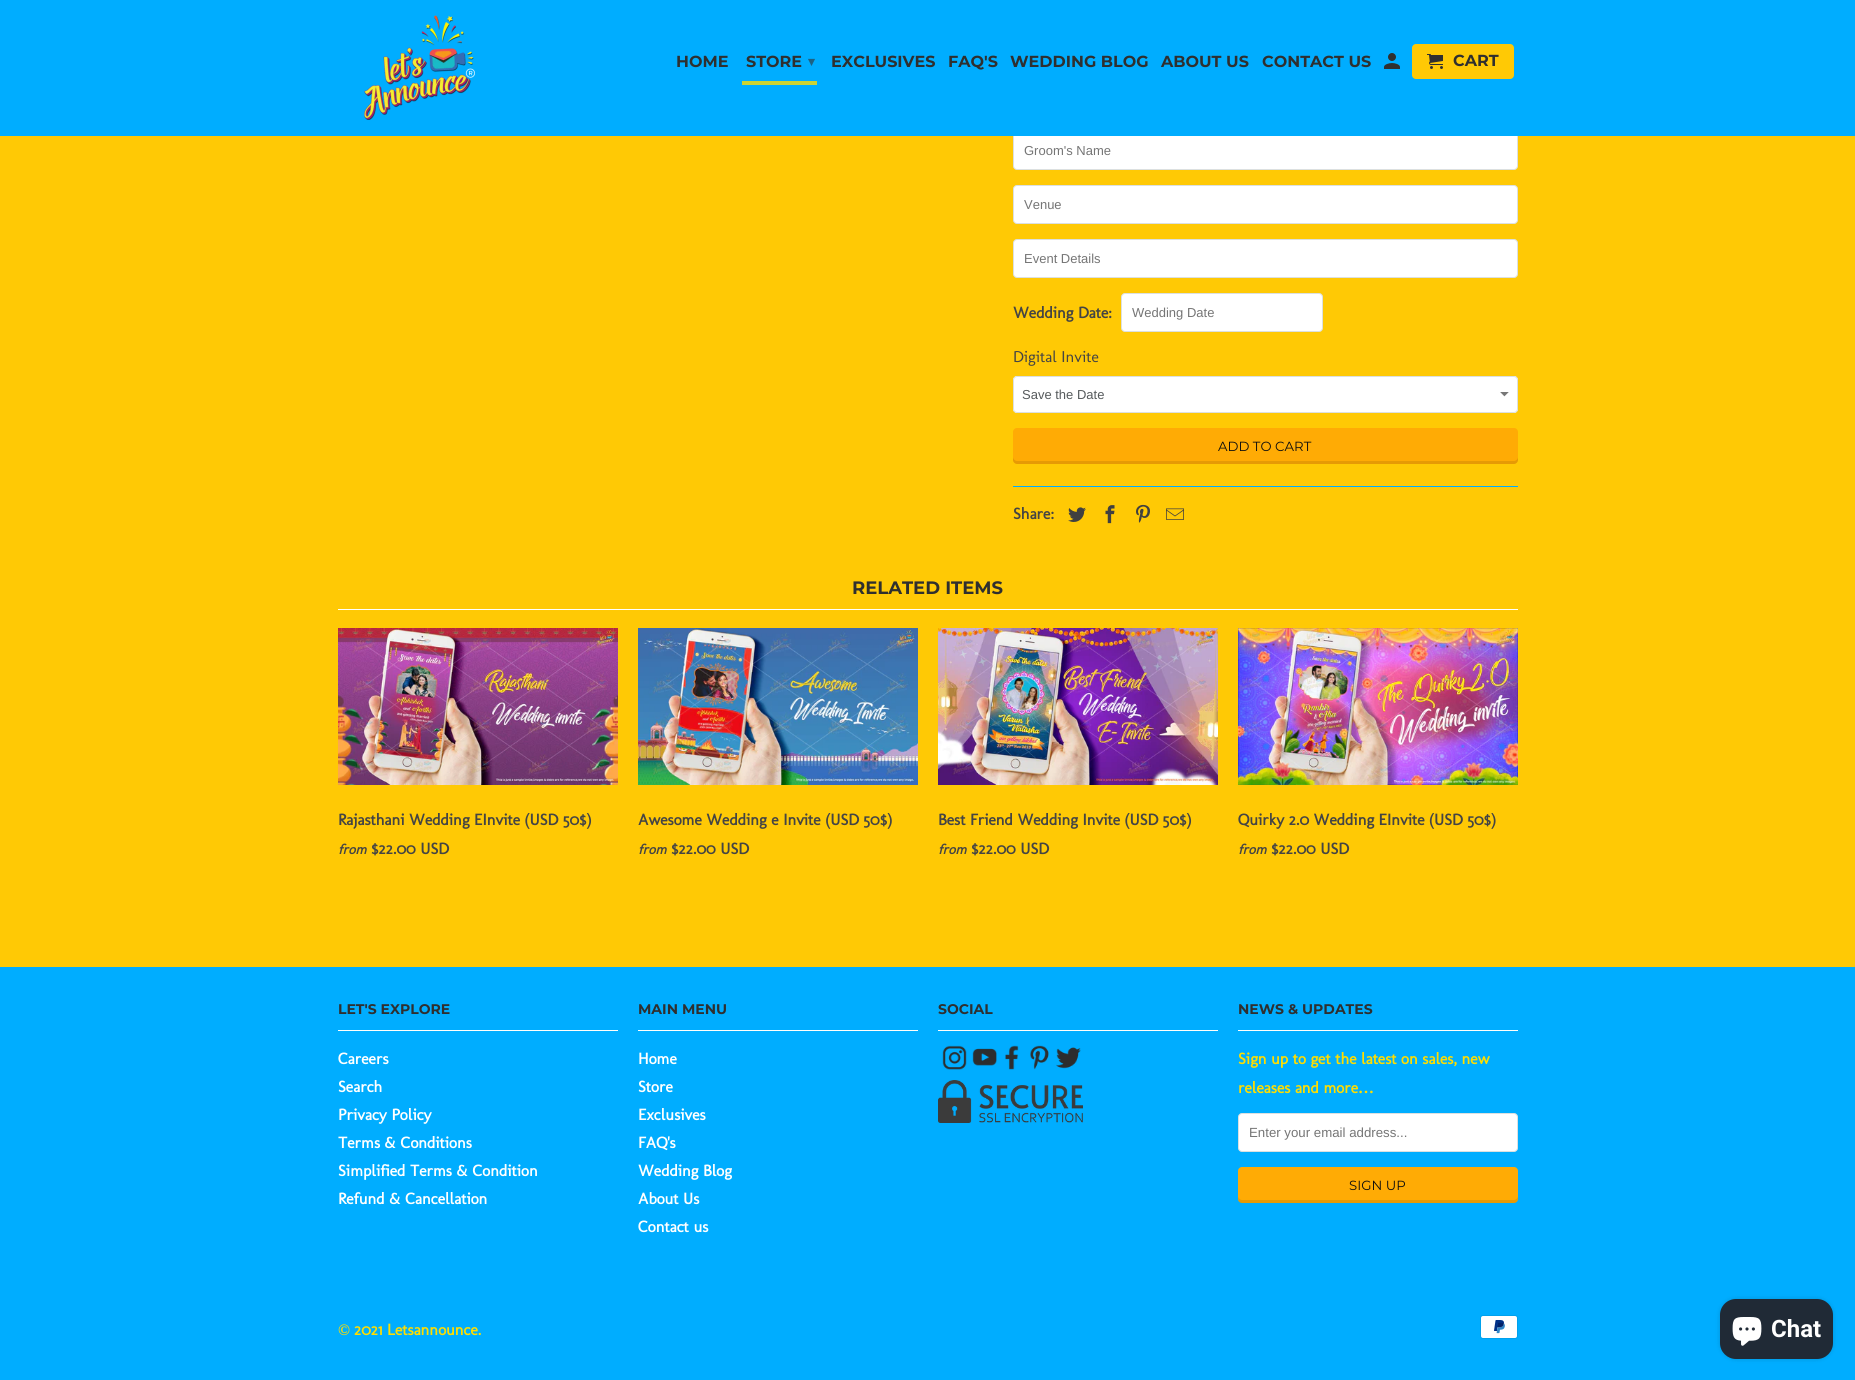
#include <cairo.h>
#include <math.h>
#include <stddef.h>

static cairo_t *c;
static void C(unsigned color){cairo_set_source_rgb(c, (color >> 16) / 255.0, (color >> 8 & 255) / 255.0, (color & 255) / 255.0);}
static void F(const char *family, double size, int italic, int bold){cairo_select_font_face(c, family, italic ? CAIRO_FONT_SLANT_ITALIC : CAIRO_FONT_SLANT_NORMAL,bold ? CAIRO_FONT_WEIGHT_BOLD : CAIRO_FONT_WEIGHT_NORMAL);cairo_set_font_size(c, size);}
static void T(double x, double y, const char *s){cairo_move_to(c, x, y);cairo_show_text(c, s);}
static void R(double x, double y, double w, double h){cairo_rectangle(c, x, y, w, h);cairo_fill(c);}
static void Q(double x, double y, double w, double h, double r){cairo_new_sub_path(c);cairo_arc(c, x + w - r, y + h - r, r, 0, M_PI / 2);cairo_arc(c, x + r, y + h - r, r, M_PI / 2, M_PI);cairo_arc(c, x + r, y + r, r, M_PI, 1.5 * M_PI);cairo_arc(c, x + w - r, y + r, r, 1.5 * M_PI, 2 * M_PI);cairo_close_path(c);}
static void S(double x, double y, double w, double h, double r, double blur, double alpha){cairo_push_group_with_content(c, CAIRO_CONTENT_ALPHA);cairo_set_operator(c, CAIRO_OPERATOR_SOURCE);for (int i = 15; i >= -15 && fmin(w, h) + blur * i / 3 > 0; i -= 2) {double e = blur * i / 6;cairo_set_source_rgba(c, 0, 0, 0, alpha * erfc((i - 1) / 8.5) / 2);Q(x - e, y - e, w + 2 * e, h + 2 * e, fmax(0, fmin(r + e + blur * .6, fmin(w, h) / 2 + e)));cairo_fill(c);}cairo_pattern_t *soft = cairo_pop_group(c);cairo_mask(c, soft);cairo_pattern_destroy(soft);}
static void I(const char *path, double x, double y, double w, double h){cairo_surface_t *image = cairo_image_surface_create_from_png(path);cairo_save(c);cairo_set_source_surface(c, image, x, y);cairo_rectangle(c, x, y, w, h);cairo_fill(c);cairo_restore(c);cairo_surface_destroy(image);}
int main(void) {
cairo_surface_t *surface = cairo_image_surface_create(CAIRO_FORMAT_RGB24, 1855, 1380);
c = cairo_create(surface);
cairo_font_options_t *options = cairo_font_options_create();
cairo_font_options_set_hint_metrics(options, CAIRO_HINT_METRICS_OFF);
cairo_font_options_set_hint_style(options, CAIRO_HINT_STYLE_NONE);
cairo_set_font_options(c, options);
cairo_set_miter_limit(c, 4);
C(0xffc905);
cairo_paint(c);
C(0xffffff);
Q(1013.5,131.5,504,38,3.5);
cairo_fill_preserve(c);
C(0xdce0e0);
cairo_set_line_width(c,1);
cairo_stroke(c);
C(0x00adff);
R(0,0,1855,136);
I("1.png",364,15,111,105);
F("Montserrat",16,0,1);
C(0x2f2f2f);
T(676,67,"HOME");
T(746,67,"STORE");
F("DejaVu Sans",13.25,0,1);
C(0x1d6283);
T(808,66,"▾");
C(0xccd333);
R(742,81,75,4);
F("Montserrat",16,0,1);
C(0x2f2f2f);
T(831,67,"EXCLUSIVES");
T(948,67,"FAQ'S");
T(1010,67,"WEDDING BLOG");
T(1161,67,"ABOUT US");
T(1262,67,"CONTACT US");
I("2.png",1384,53,16,16);
C(0xffc905);
Q(1412,44,102,35,4);
cairo_fill(c);
I("3.png",1427,54,16,15);
C(0x2f2f2f);
T(1453,66,"CART");
F("Liberation Sans",13,0,0);
C(0x757575);
T(1024,155,"Groom's Name");
C(0xffffff);
Q(1013.5,185.5,504,38,3.5);
cairo_fill_preserve(c);
C(0xdce0e0);
cairo_stroke(c);
C(0x757575);
T(1024,209,"Venue");
C(0xffffff);
Q(1013.5,239.5,504,38,3.5);
cairo_fill_preserve(c);
C(0xdce0e0);
cairo_stroke(c);
C(0x757575);
T(1024,263,"Event Details");
F("Molengo",16,0,1);
C(0x444444);
T(1013,318,"Wedding Date:");
C(0xffffff);
Q(1121.5,293.5,201,38,3.5);
cairo_fill_preserve(c);
C(0xdce0e0);
cairo_stroke(c);
F("Liberation Sans",13,0,0);
C(0x757575);
T(1132,317,"Wedding Date");
F("Molengo",16,0,0);
C(0x444444);
T(1013,362,"Digital Invite");
C(0xffffff);
Q(1013,376,505,37,4);
cairo_fill(c);
I("4.png",1500,392,9,5);
Q(1013.5,376.5,504,36,3.5);
C(0xdce0e0);
cairo_stroke(c);
F("Liberation Sans",13,0,0);
C(0x565a5c);
T(1022,399,"Save the Date");
C(0xffab05);
Q(1013,428,505,36,4);
cairo_fill(c);
cairo_set_source_rgba(c,0,0,0,0.1);
cairo_new_path(c);
cairo_move_to(c,1013,457);
cairo_line_to(c,1013,460);
cairo_curve_to(c,1013,462,1015,464,1017,464);
cairo_line_to(c,1514,464);
cairo_curve_to(c,1516,464,1518,462,1518,460);
cairo_line_to(c,1518,457);
cairo_curve_to(c,1518,459,1516,461,1514,461);
cairo_line_to(c,1017,461);
cairo_curve_to(c,1015,461,1013,459,1013,457);
cairo_close_path(c);
cairo_fill(c);
F("Montserrat",13.25,0,0);
C(0x0e0e0e);
T(1218,451,"ADD TO CART");
C(0x00adff);
R(1013,486,505,1);
F("Molengo",16,0,1);
C(0x444444);
T(1013,519,"Share:");
I("5.png",1068,507,18,15);
I("6.png",1105,505,10,19);
I("7.png",1136,504,14,19);
I("8.png",1166,508,18,12);
C(0xfffffc);
R(338,609,1180,1);
F("Montserrat",18,0,1);
C(0x2f2f2f);
T(852,594,"RELATED ITEMS");
I("9.png",338,628,280,157);
F("Molengo",16,0,1);
C(0x444444);
T(338,825,"Rajasthani Wedding EInvite (USD 50$)");
F("Molengo",14,1,1);
T(338,854,"from");
F("Molengo",16,0,1);
T(371,854,"$22.00 USD");
I("10.png",638,628,280,157);
T(638,825,"Awesome Wedding e Invite (USD 50$)");
F("Molengo",14,1,1);
T(638,854,"from");
F("Molengo",16,0,1);
T(671,854,"$22.00 USD");
I("11.png",938,628,280,157);
T(938,825,"Best Friend Wedding Invite (USD 50$)");
F("Molengo",14,1,1);
T(938,854,"from");
F("Molengo",16,0,1);
T(971,854,"$22.00 USD");
I("12.png",1238,628,280,157);
T(1238,825,"Quirky 2.0 Wedding EInvite (USD 50$)");
F("Molengo",14,1,1);
T(1238,854,"from");
F("Molengo",16,0,1);
T(1271,854,"$22.00 USD");
C(0x00adff);
R(0,967,1855,413);
C(0xfffffc);
R(338,1030,280,1);
F("Montserrat",14,0,1);
C(0x2f2f2f);
T(338,1014,"LET'S EXPLORE");
F("Molengo",16,0,1);
C(0xffffff);
T(338,1064,"Careers");
T(338,1092,"Search");
T(338,1120,"Privacy Policy");
T(338,1148,"Terms & Conditions");
T(338,1176,"Simplified Terms & Condition");
T(338,1204,"Refund & Cancellation");
C(0xfffffc);
R(638,1030,280,1);
F("Montserrat",14,0,1);
C(0x2f2f2f);
T(638,1014,"MAIN MENU");
F("Molengo",16,0,1);
C(0xffffff);
T(638,1064,"Home");
T(638,1092,"Store");
T(638,1120,"Exclusives");
T(638,1148,"FAQ's");
T(638,1176,"Wedding Blog");
T(638,1204,"About Us");
T(638,1232,"Contact us");
C(0xfffffc);
R(938,1030,280,1);
F("Montserrat",14,0,1);
C(0x2f2f2f);
T(938,1014,"SOCIAL");
I("13.png",942,1045,25,25);
I("14.png",972,1048,25,18);
I("15.png",1005,1045,14,25);
I("16.png",1030,1045,19,25);
I("17.png",1056,1047,25,22);
I("18.png",938,1080,145,43);
C(0xfffffc);
R(1238,1030,280,1);
C(0x2f2f2f);
T(1238,1014,"NEWS & UPDATES");
F("Molengo",16,0,1);
C(0xffdd00);
T(1238,1064,"Sign up to get the latest on sales, new");
T(1238,1093,"releases and more");
F("Liberation Serif",16,0,1);
T(1358,1093,"…");
C(0xffffff);
Q(1238.5,1113.5,279,38,3.5);
cairo_fill_preserve(c);
C(0xdce0e0);
cairo_stroke(c);
F("Liberation Sans",13.25,0,0);
C(0x757575);
T(1249,1137,"Enter your email address...");
C(0xffab05);
Q(1238,1167,280,36,4);
cairo_fill(c);
cairo_set_source_rgba(c,0,0,0,0.1);
cairo_new_path(c);
cairo_move_to(c,1238,1196);
cairo_curve_to(c,1238,1199,1238,1202,1241,1203);
cairo_line_to(c,1515,1203);
cairo_curve_to(c,1518,1202,1518,1199,1518,1196);
cairo_curve_to(c,1518,1198,1516,1200,1514,1200);
cairo_line_to(c,1242,1200);
cairo_curve_to(c,1240,1200,1238,1198,1238,1196);
cairo_close_path(c);
cairo_fill(c);
F("Montserrat",13.25,0,0);
C(0x0e0e0e);
T(1349,1190,"SIGN UP");
F("Liberation Serif",16,0,1);
C(0xffdd00);
T(338,1335,"©");
F("Molengo",16,0,1);
T(354,1335,"2021 Letsannounce.");
I("19.png",1480,1315,38,24);
C(0x000000);
S(1720,1299,113,60,16,2.5,.15);
C(0x202a36);
Q(1720,1299,113,60,16);
cairo_fill(c);
I("20.png",1732,1317,30,29);
F("Roboto",24,0,1);
C(0xffffff);
T(1771,1337,"Chat");
cairo_surface_write_to_png(surface, "o.png");
cairo_font_options_destroy(options);
cairo_destroy(c);
cairo_surface_destroy(surface);
return 0;
}
